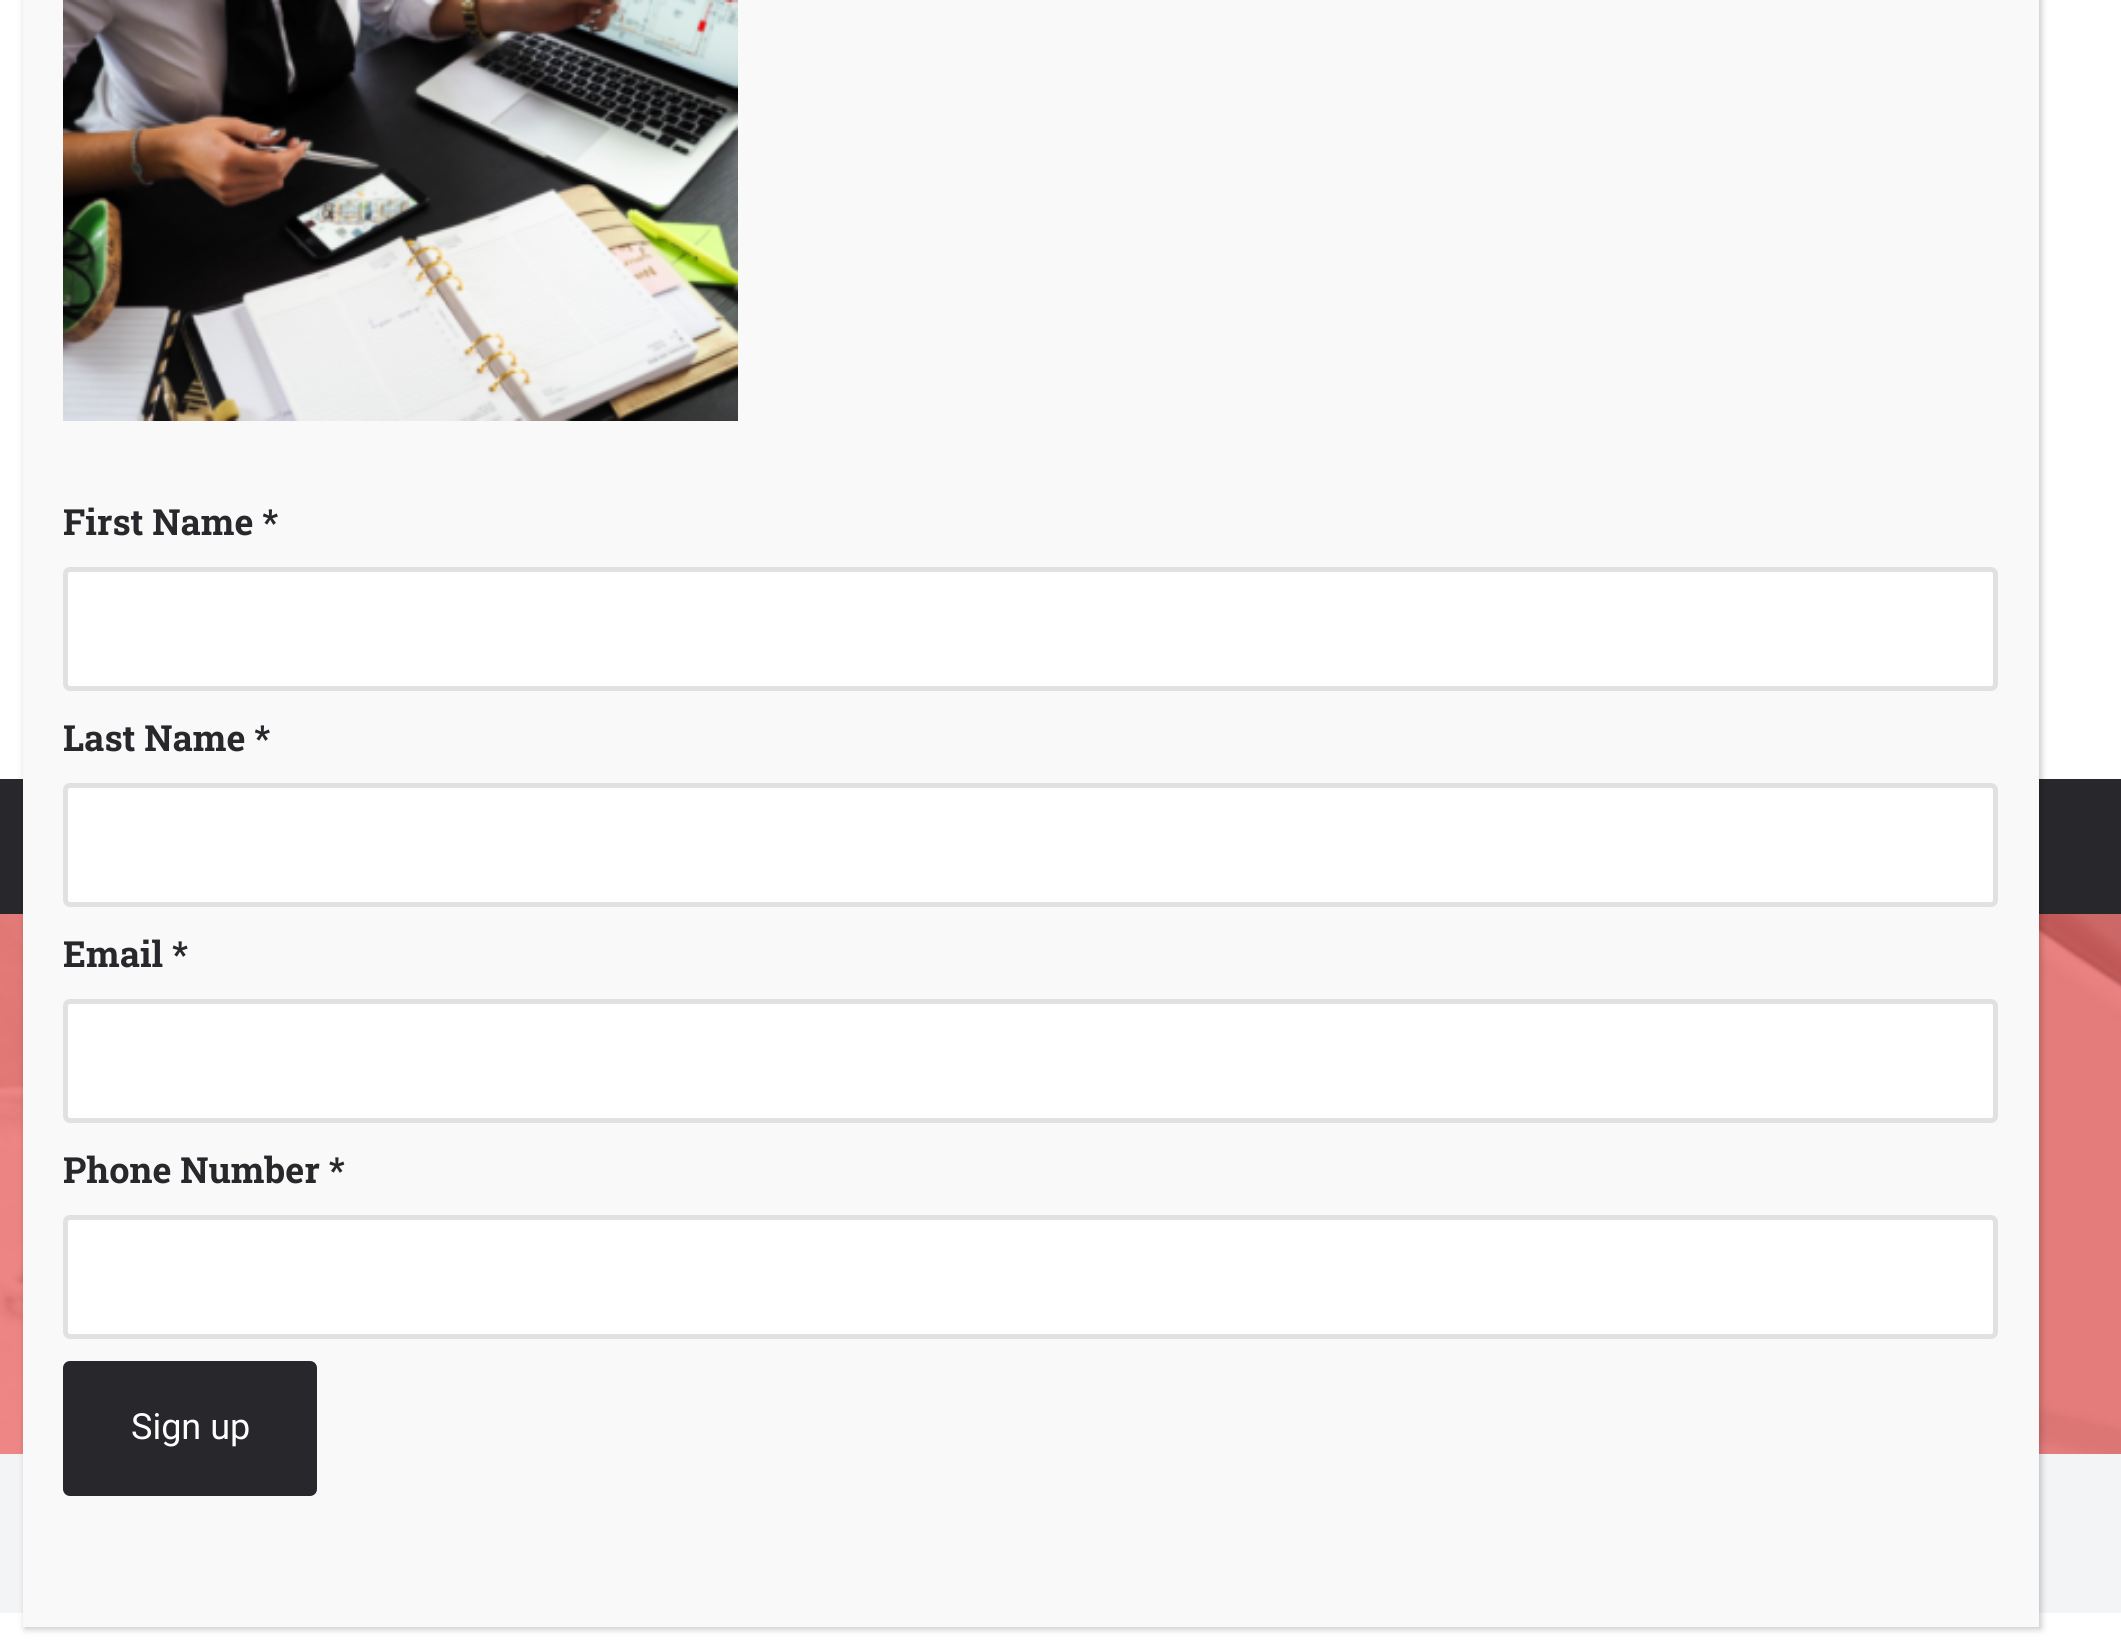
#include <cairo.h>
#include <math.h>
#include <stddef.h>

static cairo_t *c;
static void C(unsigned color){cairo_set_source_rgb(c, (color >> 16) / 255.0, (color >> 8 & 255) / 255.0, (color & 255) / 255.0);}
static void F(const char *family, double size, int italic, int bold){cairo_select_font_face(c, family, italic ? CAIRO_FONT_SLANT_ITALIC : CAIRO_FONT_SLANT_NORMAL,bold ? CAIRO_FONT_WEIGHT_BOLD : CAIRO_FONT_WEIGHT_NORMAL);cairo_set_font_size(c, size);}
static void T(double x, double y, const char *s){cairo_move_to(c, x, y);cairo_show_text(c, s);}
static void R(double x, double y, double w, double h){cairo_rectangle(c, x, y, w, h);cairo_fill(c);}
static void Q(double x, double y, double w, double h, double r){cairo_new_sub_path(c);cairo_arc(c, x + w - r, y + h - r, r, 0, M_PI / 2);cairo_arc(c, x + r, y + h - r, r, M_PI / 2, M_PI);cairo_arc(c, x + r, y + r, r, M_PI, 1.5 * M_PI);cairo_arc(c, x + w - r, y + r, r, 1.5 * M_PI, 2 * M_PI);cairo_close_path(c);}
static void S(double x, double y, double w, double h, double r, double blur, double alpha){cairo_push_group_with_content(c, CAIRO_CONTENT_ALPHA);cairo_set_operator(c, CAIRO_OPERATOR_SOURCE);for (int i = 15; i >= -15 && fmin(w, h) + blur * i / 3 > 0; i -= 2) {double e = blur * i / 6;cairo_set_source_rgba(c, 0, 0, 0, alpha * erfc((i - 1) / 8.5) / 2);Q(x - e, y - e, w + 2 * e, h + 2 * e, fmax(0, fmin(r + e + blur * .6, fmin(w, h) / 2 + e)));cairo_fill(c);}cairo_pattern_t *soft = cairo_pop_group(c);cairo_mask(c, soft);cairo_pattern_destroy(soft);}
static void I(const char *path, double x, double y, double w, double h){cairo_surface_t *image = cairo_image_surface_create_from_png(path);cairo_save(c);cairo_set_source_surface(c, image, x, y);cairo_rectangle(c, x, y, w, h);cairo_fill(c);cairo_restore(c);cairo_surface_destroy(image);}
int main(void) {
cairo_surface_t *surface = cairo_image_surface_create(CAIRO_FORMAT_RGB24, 2121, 1648);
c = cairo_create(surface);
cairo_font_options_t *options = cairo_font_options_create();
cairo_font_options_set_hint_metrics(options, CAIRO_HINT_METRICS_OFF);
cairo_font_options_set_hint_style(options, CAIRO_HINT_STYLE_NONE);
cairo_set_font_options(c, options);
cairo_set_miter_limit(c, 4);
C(0xffffff);
cairo_paint(c);
I("2.png",0,914,2121,540);
C(0x28282c);
R(0,779,2121,135);
C(0xf3f4f6);
R(0,1454,2121,159);
C(0x020202);
S(25,-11,2016,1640,0,3.5,.23);
C(0xf9f9f9);
R(23,0,2016,1627);
I("1.png",63,0,675,421);
F("Roboto Slab",36,0,1);
C(0x28282c);
T(63,535,"First Name *");
C(0xffffff);
Q(65.5,569.5,1930,119,4.5);
cairo_fill_preserve(c);
C(0xe1e1e1);
cairo_set_line_width(c,5);
cairo_stroke(c);
C(0x28282c);
T(63,751,"Last Name *");
C(0xffffff);
Q(65.5,785.5,1930,119,4.5);
cairo_fill_preserve(c);
C(0xe1e1e1);
cairo_stroke(c);
C(0x28282c);
T(63,967,"Email *");
C(0xffffff);
Q(65.5,1001.5,1930,119,4.5);
cairo_fill_preserve(c);
C(0xe1e1e1);
cairo_stroke(c);
C(0x28282c);
T(63,1183,"Phone Number *");
C(0xffffff);
Q(65.5,1217.5,1930,119,4.5);
cairo_fill_preserve(c);
C(0xe1e1e1);
cairo_stroke(c);
C(0x28282c);
Q(63,1361,254,135,7);
cairo_fill(c);
F("Roboto",36,0,0);
C(0xffffff);
T(131,1439,"Sign up");
cairo_surface_write_to_png(surface, "o.png");
cairo_font_options_destroy(options);
cairo_destroy(c);
cairo_surface_destroy(surface);
return 0;
}
